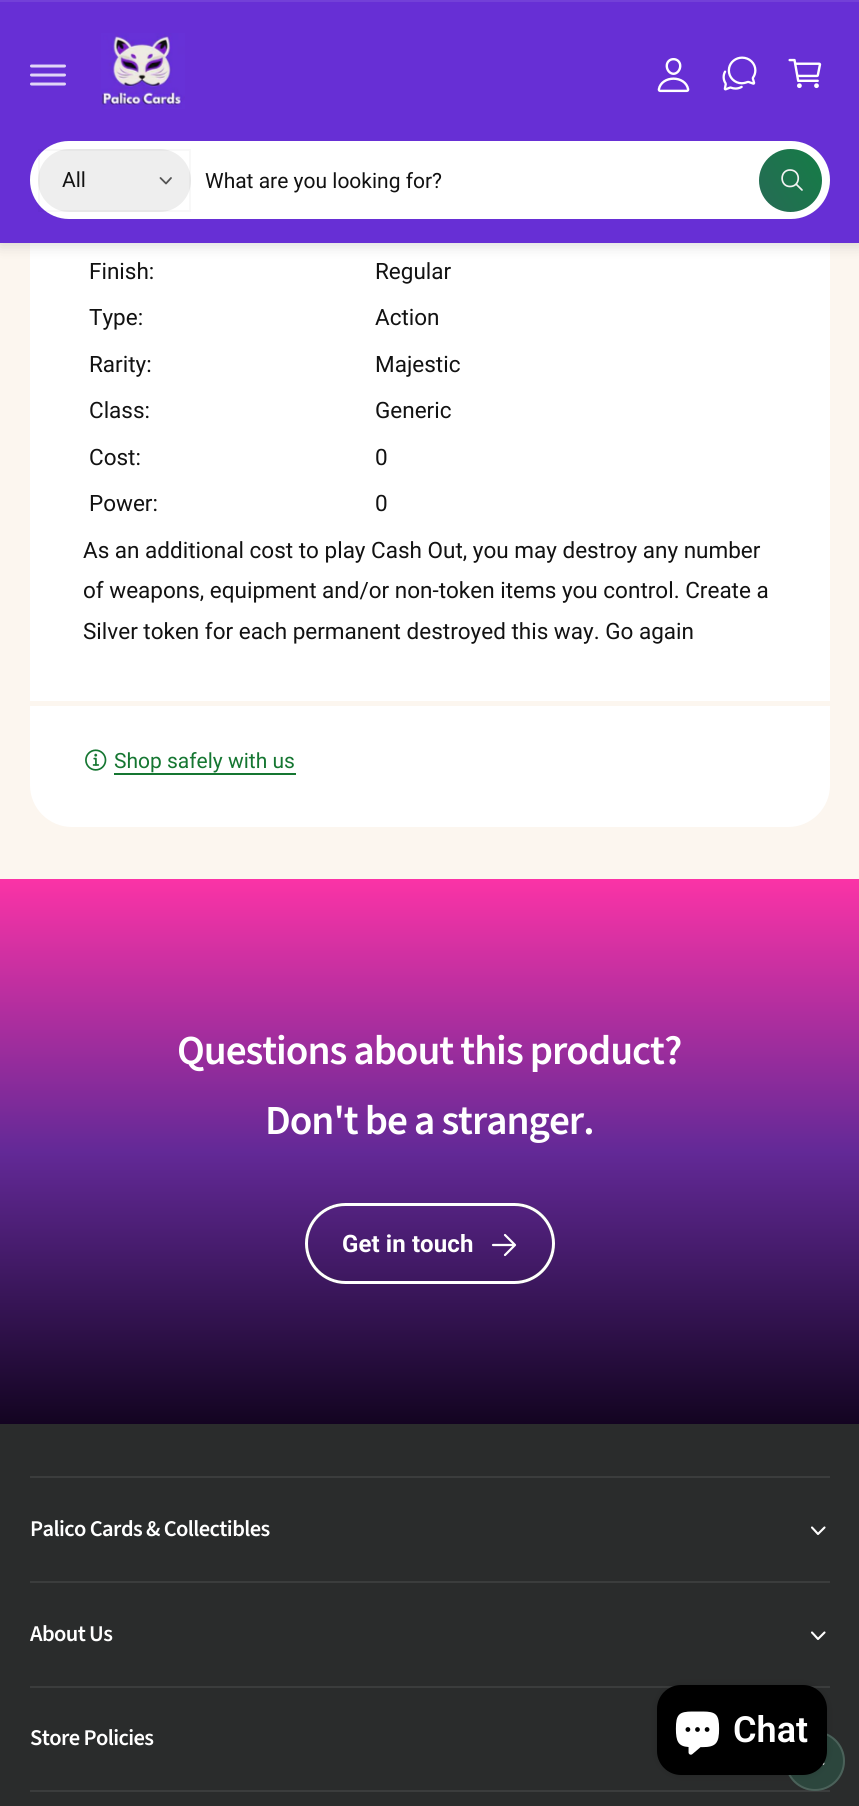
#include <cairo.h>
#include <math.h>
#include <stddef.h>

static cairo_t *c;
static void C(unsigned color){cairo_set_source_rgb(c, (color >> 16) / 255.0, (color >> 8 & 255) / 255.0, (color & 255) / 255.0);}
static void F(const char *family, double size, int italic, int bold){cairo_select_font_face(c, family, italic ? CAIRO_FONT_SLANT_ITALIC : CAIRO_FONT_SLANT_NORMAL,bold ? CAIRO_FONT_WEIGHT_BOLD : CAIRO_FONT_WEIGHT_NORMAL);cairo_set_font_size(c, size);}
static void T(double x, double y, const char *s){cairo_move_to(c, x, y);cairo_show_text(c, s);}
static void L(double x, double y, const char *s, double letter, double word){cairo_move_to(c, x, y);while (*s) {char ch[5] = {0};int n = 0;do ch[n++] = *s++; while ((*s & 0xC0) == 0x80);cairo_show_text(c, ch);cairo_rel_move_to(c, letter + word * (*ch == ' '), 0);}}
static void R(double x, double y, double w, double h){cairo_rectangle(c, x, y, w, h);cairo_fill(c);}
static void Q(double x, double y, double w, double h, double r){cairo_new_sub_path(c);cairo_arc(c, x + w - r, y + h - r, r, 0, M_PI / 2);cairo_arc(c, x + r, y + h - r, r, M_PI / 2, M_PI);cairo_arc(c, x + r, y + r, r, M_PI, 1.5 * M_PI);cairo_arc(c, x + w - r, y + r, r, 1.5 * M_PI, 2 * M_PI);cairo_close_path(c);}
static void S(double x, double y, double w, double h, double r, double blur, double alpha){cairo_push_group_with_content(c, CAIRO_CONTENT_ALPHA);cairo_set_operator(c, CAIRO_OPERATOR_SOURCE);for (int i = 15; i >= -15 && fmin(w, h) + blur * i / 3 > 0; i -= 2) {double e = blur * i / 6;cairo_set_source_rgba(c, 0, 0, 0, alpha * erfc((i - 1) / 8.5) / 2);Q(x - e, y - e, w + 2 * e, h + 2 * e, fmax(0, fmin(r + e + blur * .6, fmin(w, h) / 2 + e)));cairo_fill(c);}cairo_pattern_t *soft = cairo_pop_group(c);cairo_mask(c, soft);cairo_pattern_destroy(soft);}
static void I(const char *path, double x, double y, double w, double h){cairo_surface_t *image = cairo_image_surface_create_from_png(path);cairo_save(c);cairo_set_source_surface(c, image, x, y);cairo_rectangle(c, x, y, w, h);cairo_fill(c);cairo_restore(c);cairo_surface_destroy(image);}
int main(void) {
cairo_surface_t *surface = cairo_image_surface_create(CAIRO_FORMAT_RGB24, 859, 1806);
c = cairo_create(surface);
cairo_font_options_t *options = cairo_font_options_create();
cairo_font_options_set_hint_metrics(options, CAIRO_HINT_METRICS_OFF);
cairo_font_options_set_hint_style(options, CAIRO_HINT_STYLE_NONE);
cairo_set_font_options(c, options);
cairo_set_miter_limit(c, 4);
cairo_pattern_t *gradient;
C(0xfcf6ef);
cairo_paint(c);
C(0xffffff);
Q(30,44,800,783,42);
cairo_fill(c);
C(0x000000);
S(0,2,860,243,0,7.5,.15);
C(0x672fd5);
R(0,2,859,241);
C(0x7340d8);
R(0,0,859,2);
cairo_new_path(c);
cairo_move_to(c,31.5,66);
cairo_line_to(c,64.5,66);
cairo_move_to(c,31.5,75);
cairo_line_to(c,64.5,75);
cairo_move_to(c,31.5,84);
cairo_line_to(c,64.5,84);
C(0xe1d5f7);
cairo_set_line_width(c,3);
cairo_set_line_cap(c,CAIRO_LINE_CAP_ROUND);
cairo_stroke(c);
I("1.png",101,33,84,76);
I("2.png",657,58,33,35);
I("3.png",722,56,35,35);
I("4.png",788,58,34,31);
C(0xffffff);
Q(30,141,800,78,39);
cairo_fill(c);
C(0xeeeeee);
Q(38,149,153,63,31.5);
cairo_fill(c);
cairo_rectangle(c,39,150,151,61);
cairo_set_source_rgba(c,0.071,0.071,0.071,0.03);
cairo_set_line_width(c,2);
cairo_set_line_cap(c,CAIRO_LINE_CAP_BUTT);
cairo_stroke(c);
F("Roboto",21,0,0);
C(0x121212);
T(62,187,"All");
cairo_new_path(c);
cairo_move_to(c,160.5,178);
cairo_line_to(c,166,183.5);
cairo_line_to(c,171,178);
C(0x545454);
cairo_set_line_width(c,1.8);
cairo_set_line_cap(c,CAIRO_LINE_CAP_ROUND);
cairo_set_line_join(c,CAIRO_LINE_JOIN_ROUND);
cairo_stroke(c);
C(0x121212);
T(205,188,"What are you looking for?");
gradient = cairo_pattern_create_linear(827,157,754,203);
cairo_pattern_add_color_stop_rgba(gradient,.06,0.086,0.482,0.278,1);
cairo_pattern_add_color_stop_rgba(gradient,.94,0.145,0.424,0.329,1);
cairo_set_source(c,gradient);
cairo_pattern_destroy(gradient);
cairo_new_path(c);
cairo_arc(c,790.5,180.5,31.5,0,2 * M_PI);
cairo_fill(c);
cairo_new_path(c);
cairo_move_to(c,790,170);
cairo_curve_to(c,779.5,170,779.5,186.5,790,186.5);
cairo_curve_to(c,801,186.5,801,170,790,170);
cairo_close_path(c);
C(0xf3f3f3);
cairo_set_line_width(c,1.7);
cairo_set_line_cap(c,CAIRO_LINE_CAP_BUTT);
cairo_set_line_join(c,CAIRO_LINE_JOIN_MITER);
cairo_stroke(c);
cairo_new_path(c);
cairo_move_to(c,796.5,184.5);
cairo_line_to(c,802,190);
cairo_set_line_cap(c,CAIRO_LINE_CAP_ROUND);
cairo_stroke(c);
F("Roboto",22.5,0,0);
C(0x121212);
T(89,279,"Finish:");
T(375,279,"Regular");
T(89,325,"Type:");
T(375,325,"Action");
T(89,372,"Rarity:");
T(375,372,"Majestic");
T(89,418,"Class:");
T(375,418,"Generic");
T(89,465,"Cost:");
T(375,465,"0");
T(89,511,"Power:");
T(375,511,"0");
T(83,558,"As an additional cost to play Cash Out, you may destroy any number");
T(83,598,"of weapons, equipment and/or non-token items you control. Create a");
T(83,639,"Silver token for each permanent destroyed this way. Go again");
C(0xfcf6ef);
R(30,701,800,5);
I("5.png",85,749,22,22);
F("Roboto",21,0,0);
C(0x157631);
T(114,768,"Shop safely with us");
R(114,773,182,2);
gradient = cairo_pattern_create_linear(430,879,430,1424);
cairo_pattern_add_color_stop_rgba(gradient,0,0.984,0.2,0.651,1);
cairo_pattern_add_color_stop_rgba(gradient,.5,0.388,0.161,0.592,1);
cairo_pattern_add_color_stop_rgba(gradient,1,0.075,0.016,0.129,1);
cairo_set_source(c,gradient);
cairo_pattern_destroy(gradient);
R(0,879,859,545);
F("Source Sans Pro SemiBold",41.25,0,0);
C(0xffffff);
L(177,1064,"Questions about this product?",-1.05,0);
L(265,1134,"Don't be a stranger.",-1.05,0);
cairo_new_path(c);
cairo_move_to(c,505,1235);
cairo_line_to(c,515,1245);
cairo_line_to(c,505,1255);
cairo_move_to(c,513.5,1245);
cairo_line_to(c,493,1245);
cairo_set_line_width(c,2.2);
cairo_set_line_join(c,CAIRO_LINE_JOIN_ROUND);
cairo_stroke(c);
Q(306.5,1204.5,247,78,39);
C(0x1e1e1e);
cairo_set_line_width(c,3);
cairo_set_line_cap(c,CAIRO_LINE_CAP_BUTT);
cairo_set_line_join(c,CAIRO_LINE_JOIN_MITER);
cairo_stroke(c);
Q(306.5,1204.5,247,78,39);
C(0xffffff);
cairo_stroke(c);
F("Roboto",24,0,1);
L(342,1252,"Get in touch",.1,0);
C(0x2a2c2c);
R(0,1424,859,382);
C(0x3b3d3d);
R(30,1476,800,2);
R(30,1581,800,2);
F("Source Sans Pro SemiBold",22.5,0,0);
C(0xffffff);
L(30,1536,"Palico Cards & Collectibles",-.6,0);
cairo_new_path(c);
cairo_move_to(c,812,1527.5);
cairo_line_to(c,818,1534);
cairo_line_to(c,824.5,1527.5);
cairo_set_line_width(c,2.1);
cairo_set_line_cap(c,CAIRO_LINE_CAP_ROUND);
cairo_set_line_join(c,CAIRO_LINE_JOIN_ROUND);
cairo_stroke(c);
C(0x3b3d3d);
R(30,1686,800,2);
C(0xffffff);
L(30,1641,"About Us",-.6,0);
cairo_new_path(c);
cairo_move_to(c,812,1632.5);
cairo_line_to(c,818,1639);
cairo_line_to(c,824.5,1632.5);
cairo_stroke(c);
C(0x3b3d3d);
R(30,1790,800,2);
C(0xffffff);
L(30,1745,"Store Policies",-.6,0);
C(0x2c463d);
cairo_new_path(c);
cairo_arc(c,815,1761,30,0,2 * M_PI);
cairo_fill(c);
cairo_arc(c,815,1761,29,0,2 * M_PI);
cairo_set_source_rgba(c,1,1,1,0.15);
cairo_set_line_width(c,2);
cairo_set_line_cap(c,CAIRO_LINE_CAP_BUTT);
cairo_set_line_join(c,CAIRO_LINE_JOIN_MITER);
cairo_stroke(c);
cairo_new_path(c);
cairo_move_to(c,823,1763.5);
cairo_line_to(c,814.5,1755.5);
cairo_line_to(c,806,1763.5);
C(0xffffff);
cairo_set_line_width(c,2.8);
cairo_set_line_cap(c,CAIRO_LINE_CAP_ROUND);
cairo_set_line_join(c,CAIRO_LINE_JOIN_ROUND);
cairo_stroke(c);
C(0x000000);
S(657,1685,170,90,24,4,.15);
C(0x000000);
Q(657,1685,170,90,24);
cairo_fill(c);
I("6.png",675,1711,45,44);
F("Roboto SemiBold",36,0,0);
C(0xffffff);
T(733,1742,"Chat");
cairo_surface_write_to_png(surface, "o.png");
cairo_font_options_destroy(options);
cairo_destroy(c);
cairo_surface_destroy(surface);
return 0;
}
